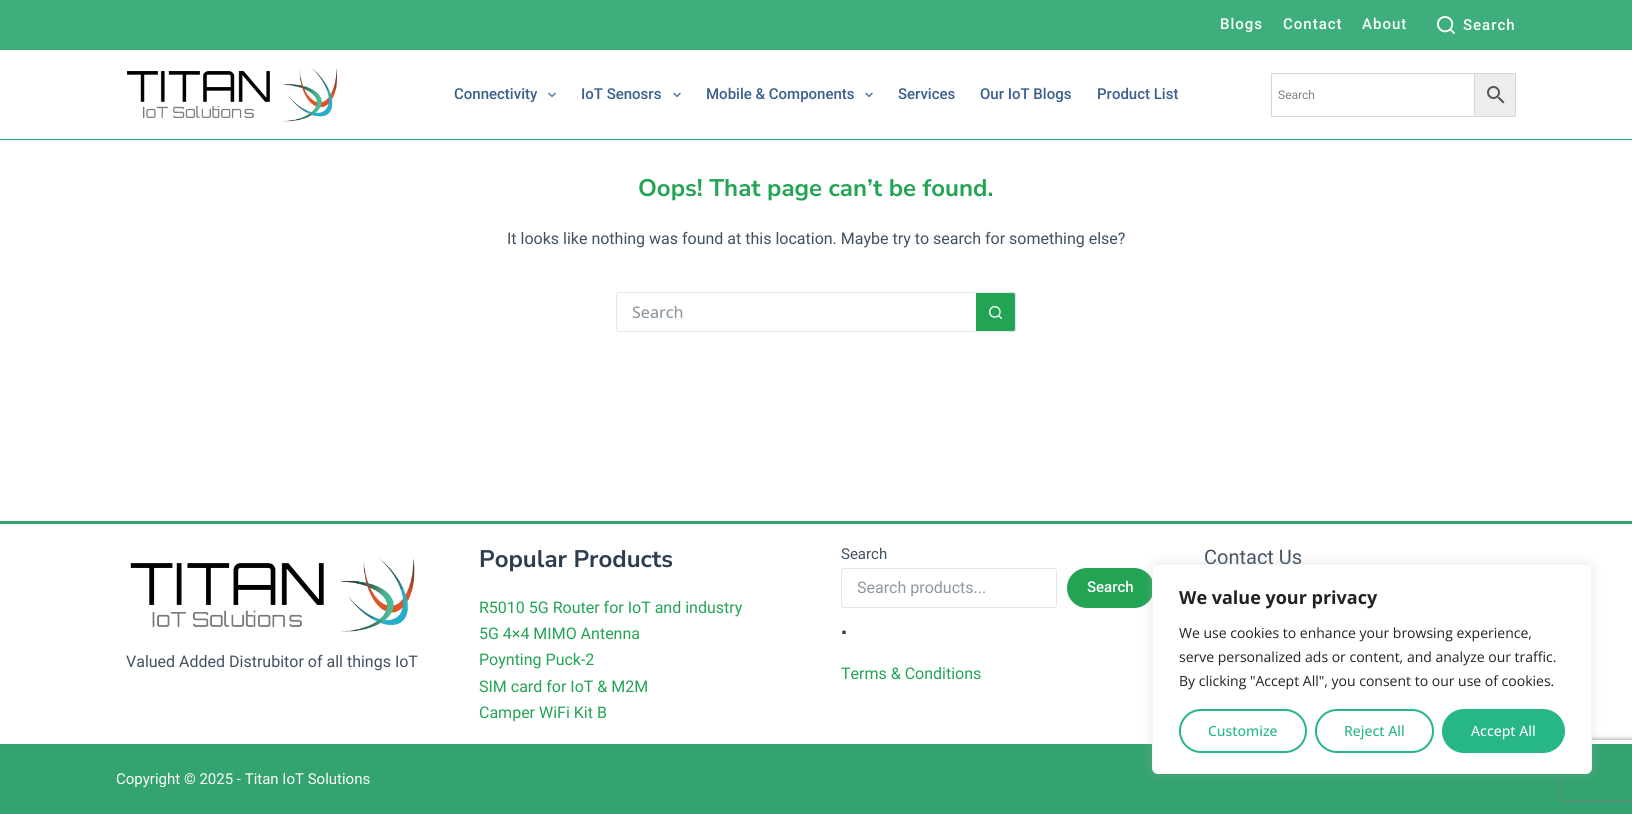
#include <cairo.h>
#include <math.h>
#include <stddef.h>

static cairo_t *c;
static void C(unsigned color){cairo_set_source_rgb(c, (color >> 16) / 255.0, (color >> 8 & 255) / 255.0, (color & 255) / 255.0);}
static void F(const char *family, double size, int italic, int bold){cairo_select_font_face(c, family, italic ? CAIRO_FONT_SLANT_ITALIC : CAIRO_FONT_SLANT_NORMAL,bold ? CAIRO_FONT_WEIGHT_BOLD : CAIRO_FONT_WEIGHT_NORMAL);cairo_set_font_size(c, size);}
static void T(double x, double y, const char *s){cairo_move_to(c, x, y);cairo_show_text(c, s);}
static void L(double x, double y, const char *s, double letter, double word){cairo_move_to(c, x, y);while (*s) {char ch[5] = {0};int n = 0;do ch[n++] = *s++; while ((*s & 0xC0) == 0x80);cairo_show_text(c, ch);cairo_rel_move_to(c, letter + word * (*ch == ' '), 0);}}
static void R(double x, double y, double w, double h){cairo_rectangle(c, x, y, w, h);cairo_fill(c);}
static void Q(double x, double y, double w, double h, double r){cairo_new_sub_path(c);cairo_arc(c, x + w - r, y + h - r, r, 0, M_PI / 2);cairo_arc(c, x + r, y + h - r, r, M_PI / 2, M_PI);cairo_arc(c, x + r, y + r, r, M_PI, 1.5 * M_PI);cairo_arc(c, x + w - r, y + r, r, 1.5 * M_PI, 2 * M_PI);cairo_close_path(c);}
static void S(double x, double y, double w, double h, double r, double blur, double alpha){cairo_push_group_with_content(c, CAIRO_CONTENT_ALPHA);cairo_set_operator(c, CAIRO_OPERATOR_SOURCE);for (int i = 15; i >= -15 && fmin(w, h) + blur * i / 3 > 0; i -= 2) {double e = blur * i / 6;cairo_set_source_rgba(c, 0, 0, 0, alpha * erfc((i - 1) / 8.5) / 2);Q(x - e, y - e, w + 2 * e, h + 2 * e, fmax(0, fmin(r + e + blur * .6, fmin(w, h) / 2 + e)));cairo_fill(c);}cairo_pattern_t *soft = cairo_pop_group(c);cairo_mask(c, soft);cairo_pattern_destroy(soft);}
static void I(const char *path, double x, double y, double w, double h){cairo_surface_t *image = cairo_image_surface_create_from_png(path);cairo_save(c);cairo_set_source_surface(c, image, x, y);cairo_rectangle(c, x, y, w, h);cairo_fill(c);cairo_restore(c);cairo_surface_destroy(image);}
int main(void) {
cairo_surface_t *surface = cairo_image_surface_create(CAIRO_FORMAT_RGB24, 1632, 814);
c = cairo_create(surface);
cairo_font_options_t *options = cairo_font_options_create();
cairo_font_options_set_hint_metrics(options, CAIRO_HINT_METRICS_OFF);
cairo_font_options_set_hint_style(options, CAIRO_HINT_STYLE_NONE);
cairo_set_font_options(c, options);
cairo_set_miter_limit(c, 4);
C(0xffffff);
cairo_paint(c);
C(0x3eaf7c);
R(0,0,1632,50);
F("Roboto Medium",15,0,0);
C(0xfcfcfc);
L(1220,29,"Blogs",1,0);
L(1283,29,"Contact",1,0);
L(1362,29,"About",1,0);
I("1.png",1437,16,18,18);
L(1463,30,"Search",1,0);
C(0x33a370);
R(0,139,1632,1);
I("2.png",127,68,210,54);
C(0x3a5f8c);
T(454,99,"Connectivity");
I("3.png",548,92,8,6);
T(581,99,"IoT Senosrs");
I("3.png",673,92,8,6);
T(706,99,"Mobile & Components");
I("3.png",865,92,8,6);
T(898,99,"Services");
T(980,99,"Our IoT Blogs");
T(1097,99,"Product List");
C(0xededed);
cairo_rectangle(c,1474.5,73.5,41,43);
cairo_fill_preserve(c);
C(0xd8d8d8);
cairo_set_line_width(c,1);
cairo_stroke(c);
cairo_rectangle(c,1271.5,73.5,203,43);
cairo_stroke(c);
F("Roboto",12,0,0);
C(0x838383);
T(1278,99,"Search");
I("4.png",1487,86,18,18);
F("Nunito Sans",24,0,1);
C(0x23a455);
T(638,196,"Oops! That page can’t be found.");
F("Roboto",16,0,0);
C(0x415161);
T(507,244,"It looks like nothing was found at this location. Maybe try to search for something else?");
C(0xe2e7ed);
cairo_set_fill_rule(c,CAIRO_FILL_RULE_EVEN_ODD);
cairo_new_path(c);
cairo_move_to(c,619,292);
cairo_line_to(c,976,292);
cairo_line_to(c,976,332);
cairo_line_to(c,619,332);
cairo_curve_to(c,617,332,616,331,616,329);
cairo_line_to(c,616,295);
cairo_curve_to(c,616,293,617,292,619,292);
cairo_close_path(c);
cairo_move_to(c,619,293);
cairo_line_to(c,976,293);
cairo_line_to(c,976,331);
cairo_line_to(c,618,331);
cairo_curve_to(c,616,329,617,324,617,323);
cairo_line_to(c,617,295);
cairo_line_to(c,618,293);
cairo_close_path(c);
cairo_fill(c);
F("Open Sans Medium",16,0,0);
C(0x8d97a0);
T(632,318,"Search");
C(0x23a455);
cairo_new_path(c);
cairo_move_to(c,976,292);
cairo_line_to(c,1013,292);
cairo_curve_to(c,1014.5,292,1016,293.5,1016,295);
cairo_line_to(c,1016,329);
cairo_curve_to(c,1016,330.5,1014.5,332,1013,332);
cairo_line_to(c,976,332);
cairo_close_path(c);
cairo_fill(c);
C(0xe2e7ed);
cairo_new_path(c);
cairo_move_to(c,976,292);
cairo_line_to(c,1013,292);
cairo_curve_to(c,1015,292,1016,293,1016,295);
cairo_line_to(c,1016,329);
cairo_curve_to(c,1016,331,1015,332,1013,332);
cairo_line_to(c,976,332);
cairo_close_path(c);
cairo_move_to(c,976,293);
cairo_line_to(c,1013,293);
cairo_curve_to(c,1014,293,1015,294,1015,295);
cairo_line_to(c,1015,329);
cairo_curve_to(c,1015,330,1014,331,1013,331);
cairo_line_to(c,976,331);
cairo_close_path(c);
cairo_fill(c);
I("5.png",989,306,13,13);
C(0x33a370);
R(0,521,1632,3);
R(0,744,1632,70);
I("6.png",130,558,285,74);
F("Roboto",16,0,0);
C(0x415161);
T(126,667,"Valued Added Distrubitor of all things IoT");
F("Nunito Sans",24,0,1);
C(0x2c3e50);
T(479,567,"Popular Products");
F("Roboto",16,0,0);
C(0x23a455);
T(479,613,"R5010 5G Router for IoT and industry");
T(479,639,"5G 4×4 MIMO Antenna");
T(479,665,"Poynting Puck-2");
T(479,692,"SIM card for IoT & M2M");
T(479,718,"Camper WiFi Kit B");
F("Roboto",15,0,0);
C(0x415161);
T(841,559,"Search");
Q(841.5,568.5,215,39,2.5);
C(0xe2e7ed);
cairo_stroke(c);
F("Roboto",16,0,0);
C(0x8d97a0);
T(857,593,"Search products...");
C(0x23a455);
Q(1067,568,87,40,20);
cairo_fill(c);
F("Roboto Medium",15,0,0);
C(0xfcfcfc);
T(1087,592,"Search");
F("Nunito Sans",24,0,1);
C(0x2c3e50);
T(841,634,".");
F("Roboto",16,0,0);
C(0x23a455);
T(841,679,"Terms & Conditions");
F("Roboto",20,0,0);
C(0x415161);
T(1204,564,"Contact Us");
F("Roboto",15,0,0);
C(0xfcfcfc);
T(116,784,"Copyright © 2025 - Titan IoT Solutions");
C(0xacabab);
S(1152,563,440,210,6,5,.3);
cairo_save(c);
cairo_new_path(c);
cairo_move_to(c,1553,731);
cairo_line_to(c,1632,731);
cairo_line_to(c,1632,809);
cairo_line_to(c,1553,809);
cairo_close_path(c);
cairo_move_to(c,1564,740);
cairo_line_to(c,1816,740);
cairo_curve_to(c,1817,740,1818,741,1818,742);
cairo_line_to(c,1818,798);
cairo_curve_to(c,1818,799,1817,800,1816,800);
cairo_line_to(c,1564,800);
cairo_curve_to(c,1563,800,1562,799,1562,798);
cairo_line_to(c,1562,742);
cairo_curve_to(c,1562,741,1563,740,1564,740);
cairo_close_path(c);
cairo_clip(c);
C(0x808080);
S(1562,740,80,60,2,2.5,1);
cairo_restore(c);
C(0xffffff);
Q(1152.5,564.5,439,209,5.5);
cairo_fill_preserve(c);
C(0xf4f4f4);
cairo_stroke(c);
F("Open Sans",18,0,1);
C(0x212121);
T(1179,604,"We value your privacy");
F("Open Sans",14,0,0);
T(1179,638,"We use cookies to enhance your browsing experience,");
T(1179,662,"serve personalized ads or content, and analyze our traffic.");
T(1179,686,"By clicking \"Accept All\", you consent to our use of cookies.");
Q(1180,710,126,42,21);
C(0x27b688);
cairo_set_line_width(c,2);
cairo_stroke(c);
F("Open Sans Medium",14,0,0);
T(1208,736,"Customize");
Q(1316,710,117,42,21);
cairo_stroke(c);
T(1344,736,"Reject All");
Q(1443,710,121,42,21);
cairo_fill_preserve(c);
cairo_stroke(c);
C(0xfcfcfc);
T(1471,736,"Accept All");
cairo_surface_write_to_png(surface, "o.png");
cairo_font_options_destroy(options);
cairo_destroy(c);
cairo_surface_destroy(surface);
return 0;
}
